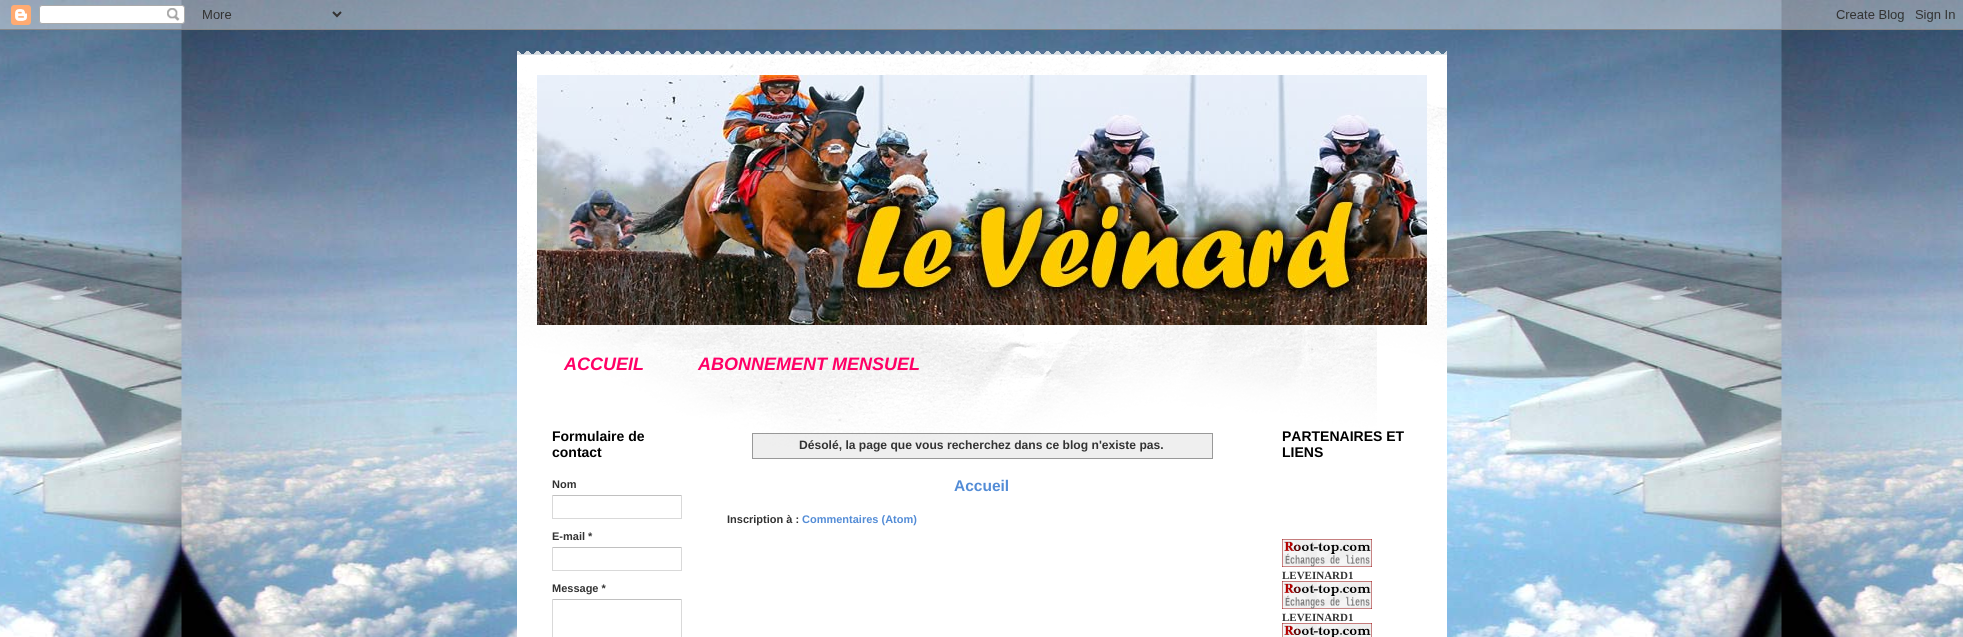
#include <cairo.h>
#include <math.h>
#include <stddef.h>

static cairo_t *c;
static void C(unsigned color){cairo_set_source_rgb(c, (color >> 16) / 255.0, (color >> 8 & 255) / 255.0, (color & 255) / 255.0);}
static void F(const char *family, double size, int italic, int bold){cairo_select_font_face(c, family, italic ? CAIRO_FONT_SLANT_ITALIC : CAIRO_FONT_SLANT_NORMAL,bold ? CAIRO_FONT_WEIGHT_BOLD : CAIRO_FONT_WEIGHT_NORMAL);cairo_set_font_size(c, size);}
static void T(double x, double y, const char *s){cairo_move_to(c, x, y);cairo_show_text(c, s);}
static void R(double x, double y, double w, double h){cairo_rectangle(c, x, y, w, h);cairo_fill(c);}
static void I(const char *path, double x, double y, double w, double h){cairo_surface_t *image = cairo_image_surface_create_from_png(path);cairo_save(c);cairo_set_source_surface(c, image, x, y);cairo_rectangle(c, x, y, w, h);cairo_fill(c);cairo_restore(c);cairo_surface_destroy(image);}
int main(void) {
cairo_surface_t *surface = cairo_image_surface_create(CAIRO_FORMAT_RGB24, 1963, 637);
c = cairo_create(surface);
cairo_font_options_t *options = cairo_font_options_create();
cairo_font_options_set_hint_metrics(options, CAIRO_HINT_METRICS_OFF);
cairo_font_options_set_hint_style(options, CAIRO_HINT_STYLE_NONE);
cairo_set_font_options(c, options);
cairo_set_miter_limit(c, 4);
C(0xffffff);
cairo_paint(c);
I("1.png",0,0,1963,637);
I("2.png",0,0,1963,30);
I("3.png",517,51,930,4);
C(0xffffff);
R(517,55,930,582);
I("4.png",517,55,930,392);
I("5.png",537,75,890,250);
F("Liberation Sans",18,1,1);
C(0xff0066);
T(564,370,"ACCUEIL");
T(698,370,"ABONNEMENT MENSUEL");
C(0xffffff);
R(1375,413,2,3);
F("Liberation Sans",14,0,1);
C(0x000000);
T(552,441,"Formulaire de");
T(552,457,"contact");
F("Liberation Sans",11,0,1);
C(0x333333);
T(552,488,"Nom");
C(0xc0c0c0);
R(552,495,130,1);
C(0xd9d9d9);
R(681,495,1,24);
R(552,518,130,1);
R(552,495,1,24);
C(0x333333);
T(552,540,"E-mail *");
C(0xc0c0c0);
R(552,547,130,1);
C(0xd9d9d9);
R(681,547,1,24);
R(552,570,130,1);
R(552,547,1,24);
C(0x333333);
T(552,592,"Message *");
C(0xc0c0c0);
R(552,599,130,1);
C(0xd9d9d9);
R(681,599,1,38);
R(552,599,1,38);
cairo_rectangle(c,752.5,433.5,460,25);
cairo_set_source_rgba(c,0,0,0,0.4);
cairo_set_line_width(c,1);
cairo_stroke(c);
cairo_set_source_rgba(c,0.8,0.8,0.8,0.32);
R(753,434,459,24);
F("Liberation Sans",12.1,0,1);
C(0x333333);
T(799,449,"Désolé, la page que vous recherchez dans ce blog n'existe pas.");
F("Liberation Sans",15.5,0,1);
C(0x538cd6);
T(954,491,"Accueil");
F("Liberation Sans",11,0,1);
C(0x333333);
T(727,523,"Inscription à :");
C(0x538cd6);
T(802,523,"Commentaires (Atom)");
F("Liberation Sans",14,0,1);
C(0x000000);
T(1282,441,"PARTENAIRES ET");
T(1282,457,"LIENS");
I("6.png",1282,539,90,28);
F("Liberation Serif",11,0,1);
C(0x333333);
T(1282,579,"LEVEINARD1");
I("6.png",1282,581,90,28);
T(1282,621,"LEVEINARD1");
I("7.png",1282,623,90,14);
cairo_surface_write_to_png(surface, "o.png");
cairo_font_options_destroy(options);
cairo_destroy(c);
cairo_surface_destroy(surface);
return 0;
}
